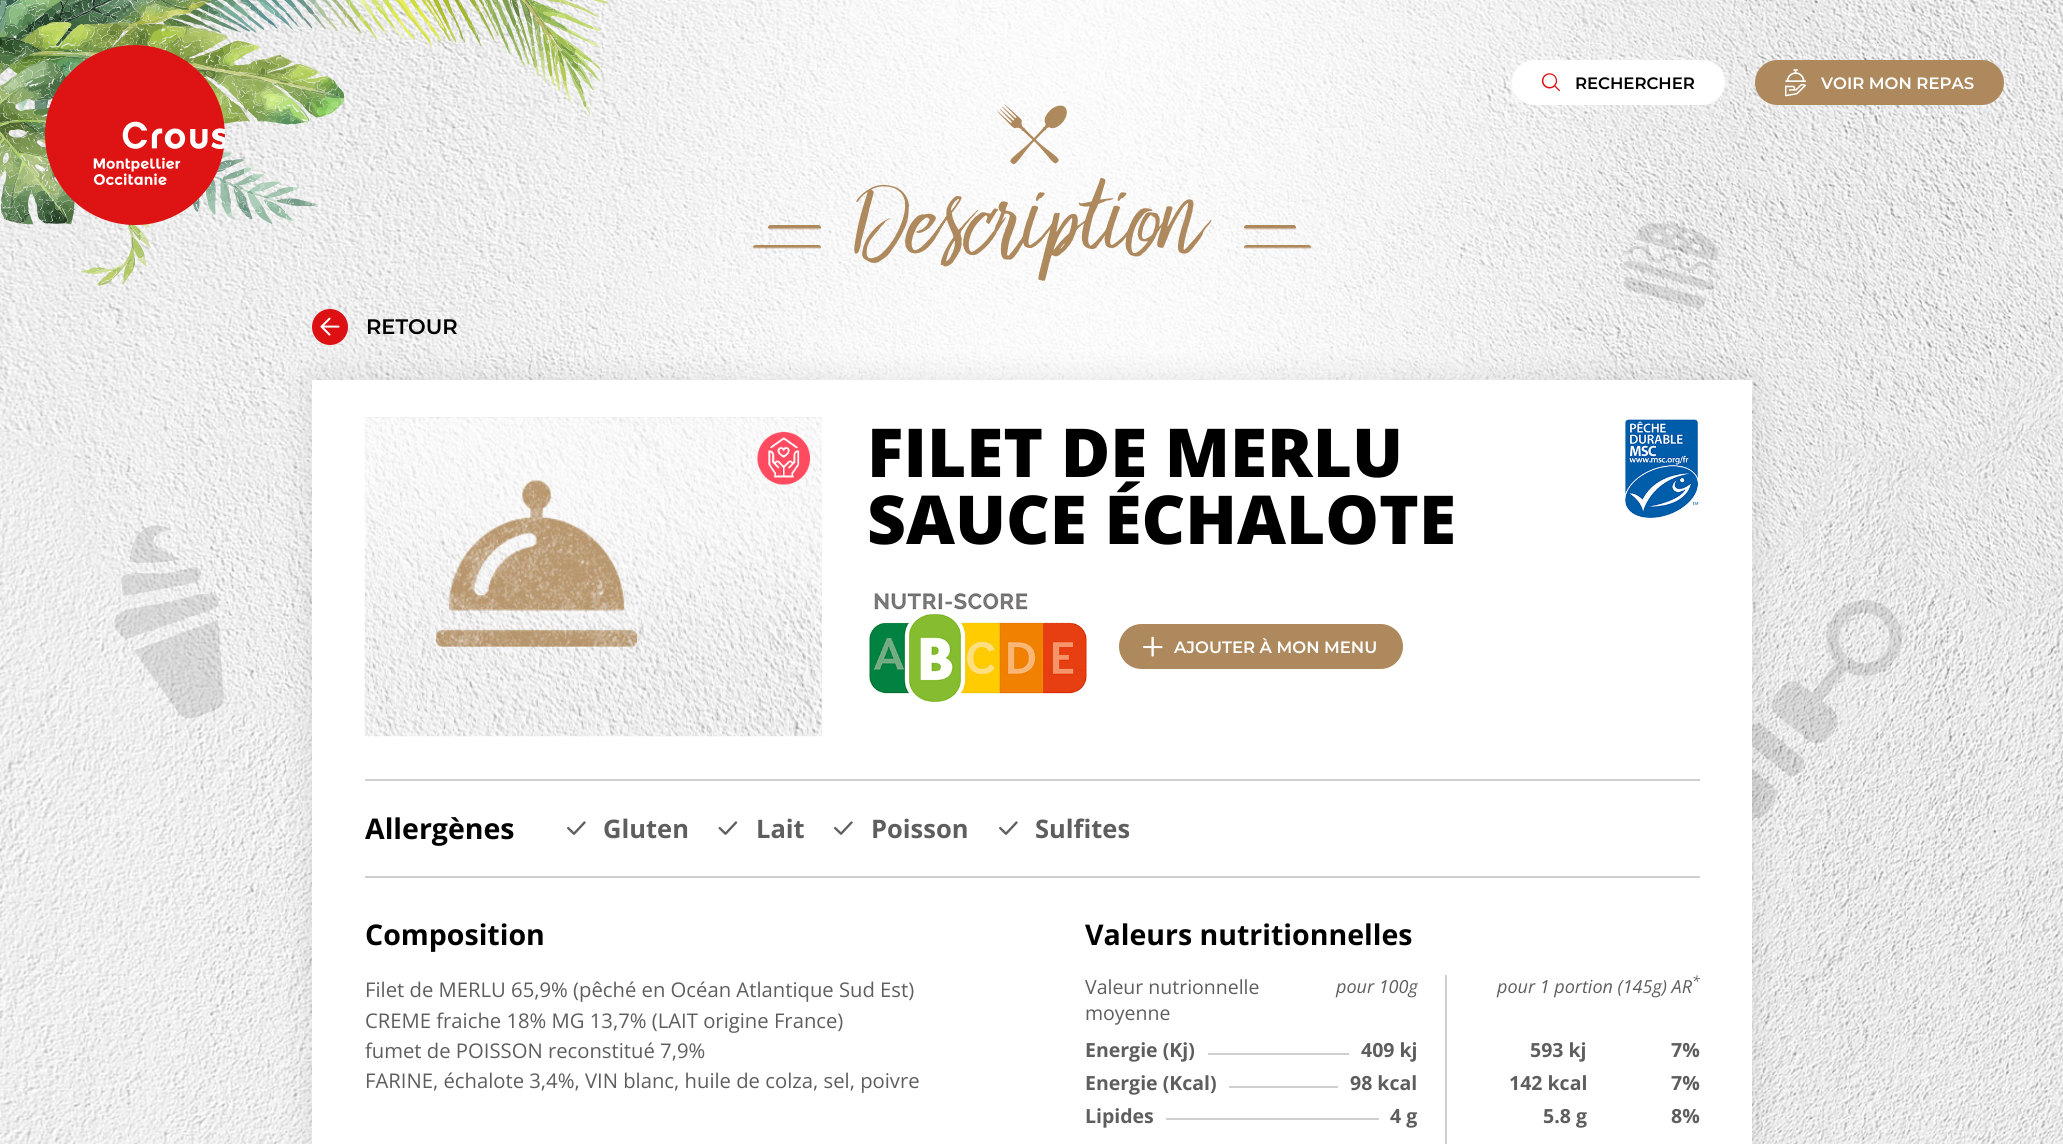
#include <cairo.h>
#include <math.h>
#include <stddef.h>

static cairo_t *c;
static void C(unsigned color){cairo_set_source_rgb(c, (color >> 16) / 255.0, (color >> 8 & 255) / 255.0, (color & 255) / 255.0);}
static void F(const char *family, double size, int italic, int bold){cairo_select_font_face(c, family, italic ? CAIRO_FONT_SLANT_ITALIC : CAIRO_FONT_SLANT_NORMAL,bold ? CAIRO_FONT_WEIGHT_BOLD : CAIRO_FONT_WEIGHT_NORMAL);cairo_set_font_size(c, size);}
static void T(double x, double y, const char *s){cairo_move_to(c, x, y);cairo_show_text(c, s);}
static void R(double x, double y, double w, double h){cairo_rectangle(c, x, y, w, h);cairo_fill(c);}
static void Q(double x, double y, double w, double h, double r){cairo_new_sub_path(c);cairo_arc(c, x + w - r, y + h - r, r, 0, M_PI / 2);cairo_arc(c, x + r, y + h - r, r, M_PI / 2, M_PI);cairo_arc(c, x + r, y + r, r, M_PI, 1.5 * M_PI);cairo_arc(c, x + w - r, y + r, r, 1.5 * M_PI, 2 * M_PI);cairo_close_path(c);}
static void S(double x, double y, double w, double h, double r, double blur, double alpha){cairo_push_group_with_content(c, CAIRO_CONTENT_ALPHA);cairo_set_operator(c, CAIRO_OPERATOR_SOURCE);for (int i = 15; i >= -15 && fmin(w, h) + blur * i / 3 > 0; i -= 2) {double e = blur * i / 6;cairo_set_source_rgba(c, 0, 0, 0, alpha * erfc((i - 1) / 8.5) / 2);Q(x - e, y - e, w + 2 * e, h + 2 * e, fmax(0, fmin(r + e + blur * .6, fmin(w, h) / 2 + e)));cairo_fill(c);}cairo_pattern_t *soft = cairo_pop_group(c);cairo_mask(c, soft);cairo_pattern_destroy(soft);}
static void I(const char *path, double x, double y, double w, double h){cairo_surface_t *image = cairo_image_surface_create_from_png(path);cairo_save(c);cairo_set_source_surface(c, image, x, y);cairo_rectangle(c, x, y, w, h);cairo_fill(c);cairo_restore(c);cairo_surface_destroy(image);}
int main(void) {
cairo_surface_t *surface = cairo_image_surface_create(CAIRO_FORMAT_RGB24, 2063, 1144);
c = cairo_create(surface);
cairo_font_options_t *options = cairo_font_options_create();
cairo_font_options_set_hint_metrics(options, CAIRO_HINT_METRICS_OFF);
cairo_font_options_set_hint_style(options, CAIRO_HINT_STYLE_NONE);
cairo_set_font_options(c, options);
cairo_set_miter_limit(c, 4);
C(0xffffff);
cairo_paint(c);
I("1.png",0,0,2063,1144);
I("2.png",0,0,607,286);
I("3.png",45,45,180,180);
C(0xffffff);
Q(1512,60,213,45,22.5);
cairo_fill(c);
I("4.png",1541,73,19,19);
F("Montserrat SemiBold",16.5,0,0);
C(0x000000);
T(1575,89,"RECHERCHER");
C(0xae895d);
Q(1755,60,249,45,22.5);
cairo_fill(c);
I("5.png",1785,69,21,28);
C(0xffffff);
T(1821,89,"VOIR MON REPAS");
I("6.png",997,104,70,61);
F("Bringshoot",105,0,0);
C(0xae895d);
T(857,251,"Description");
I("17.png",1752,600,150,218);
C(0x000000);
S(312,380,1440,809,0,15,.1);
C(0xdd1114);
cairo_arc(c,330,327,18,0,2 * M_PI);
cairo_fill(c);
I("7.png",320,317,20,19);
F("Montserrat SemiBold",21,0,0);
C(0x000000);
T(366,334,"RETOUR");
C(0xffffff);
R(312,380,1440,764);
I("8.png",364,417,458,320);
I("9.png",757,432,53,53);
F("Open Sans ExtraBold",67.5,0,0);
C(0x000000);
T(867,477,"FILET DE MERLU");
T(867,544,"SAUCE ÉCHALOTE");
I("10.png",869,593,218,109);
C(0xae895d);
Q(1120.5,625.5,281,42,21);
cairo_fill_preserve(c);
cairo_set_line_width(c,3);
cairo_stroke(c);
I("11.png",1143,636,20,21);
F("Montserrat SemiBold",16.5,0,0);
C(0xffffff);
T(1174,653,"AJOUTER À MON MENU");
I("12.png",1625,419,74,99);
C(0xcfcfcf);
R(365,779,1335,2);
R(365,876,1335,2);
F("Open Sans",28.5,0,1);
C(0x000000);
T(365,839,"Allergènes");
I("13.png",567,821,19,14);
F("Open Sans",25.5,0,1);
C(0x5e5e5e);
T(603,838,"Gluten");
I("14.png",718,821,20,14);
T(756,838,"Lait");
I("13.png",834,821,19,14);
T(871,838,"Poisson");
I("13.png",999,821,19,14);
T(1035,838,"Sulfites");
F("Open Sans",28.5,0,1);
C(0x000000);
T(365,945,"Composition");
F("Open Sans",20.25,0,0);
C(0x5e5e5e);
T(365,997,"Filet de MERLU 65,9% (pêché en Océan Atlantique Sud Est)");
T(365,1028,"CREME fraiche 18% MG 13,7% (LAIT origine France)");
T(365,1058,"fumet de POISSON reconstitué 7,9%");
T(365,1088,"FARINE, échalote 3,4%, VIN blanc, huile de colza, sel, poivre");
F("Open Sans",28.5,0,1);
C(0x000000);
T(1085,945,"Valeurs nutritionnelles");
F("Open Sans",19.5,0,0);
C(0x5e5e5e);
T(1085,994,"Valeur nutrionnelle");
T(1085,1020,"moyenne");
F("Open Sans",18,1,0);
T(1336,993,"pour 100g");
C(0xcfcfcf);
R(1445,975,2,169);
C(0x5e5e5e);
T(1497,993,"pour 1 portion (145g) AR");
F("Open Sans",14,1,0);
T(1692,986,"*");
F("Open Sans",19.5,0,1);
T(1085,1057,"Energie (Kj)");
C(0xcfcfcf);
R(1208,1053,141,2);
C(0x5e5e5e);
T(1361,1057,"409 kj");
T(1530,1057,"593 kj");
T(1671,1057,"7%");
T(1085,1090,"Energie (Kcal)");
C(0xcfcfcf);
R(1229,1086,109,2);
C(0x5e5e5e);
T(1350,1090,"98 kcal");
T(1509,1090,"142 kcal");
T(1671,1090,"7%");
T(1085,1123,"Lipides");
C(0xcfcfcf);
R(1166,1118,213,2);
C(0x5e5e5e);
T(1390,1123,"4 g");
T(1543,1123,"5.8 g");
T(1671,1123,"8%");
I("15.png",1622,223,99,86);
I("16.png",114,525,110,194);
cairo_surface_write_to_png(surface, "o.png");
cairo_font_options_destroy(options);
cairo_destroy(c);
cairo_surface_destroy(surface);
return 0;
}
